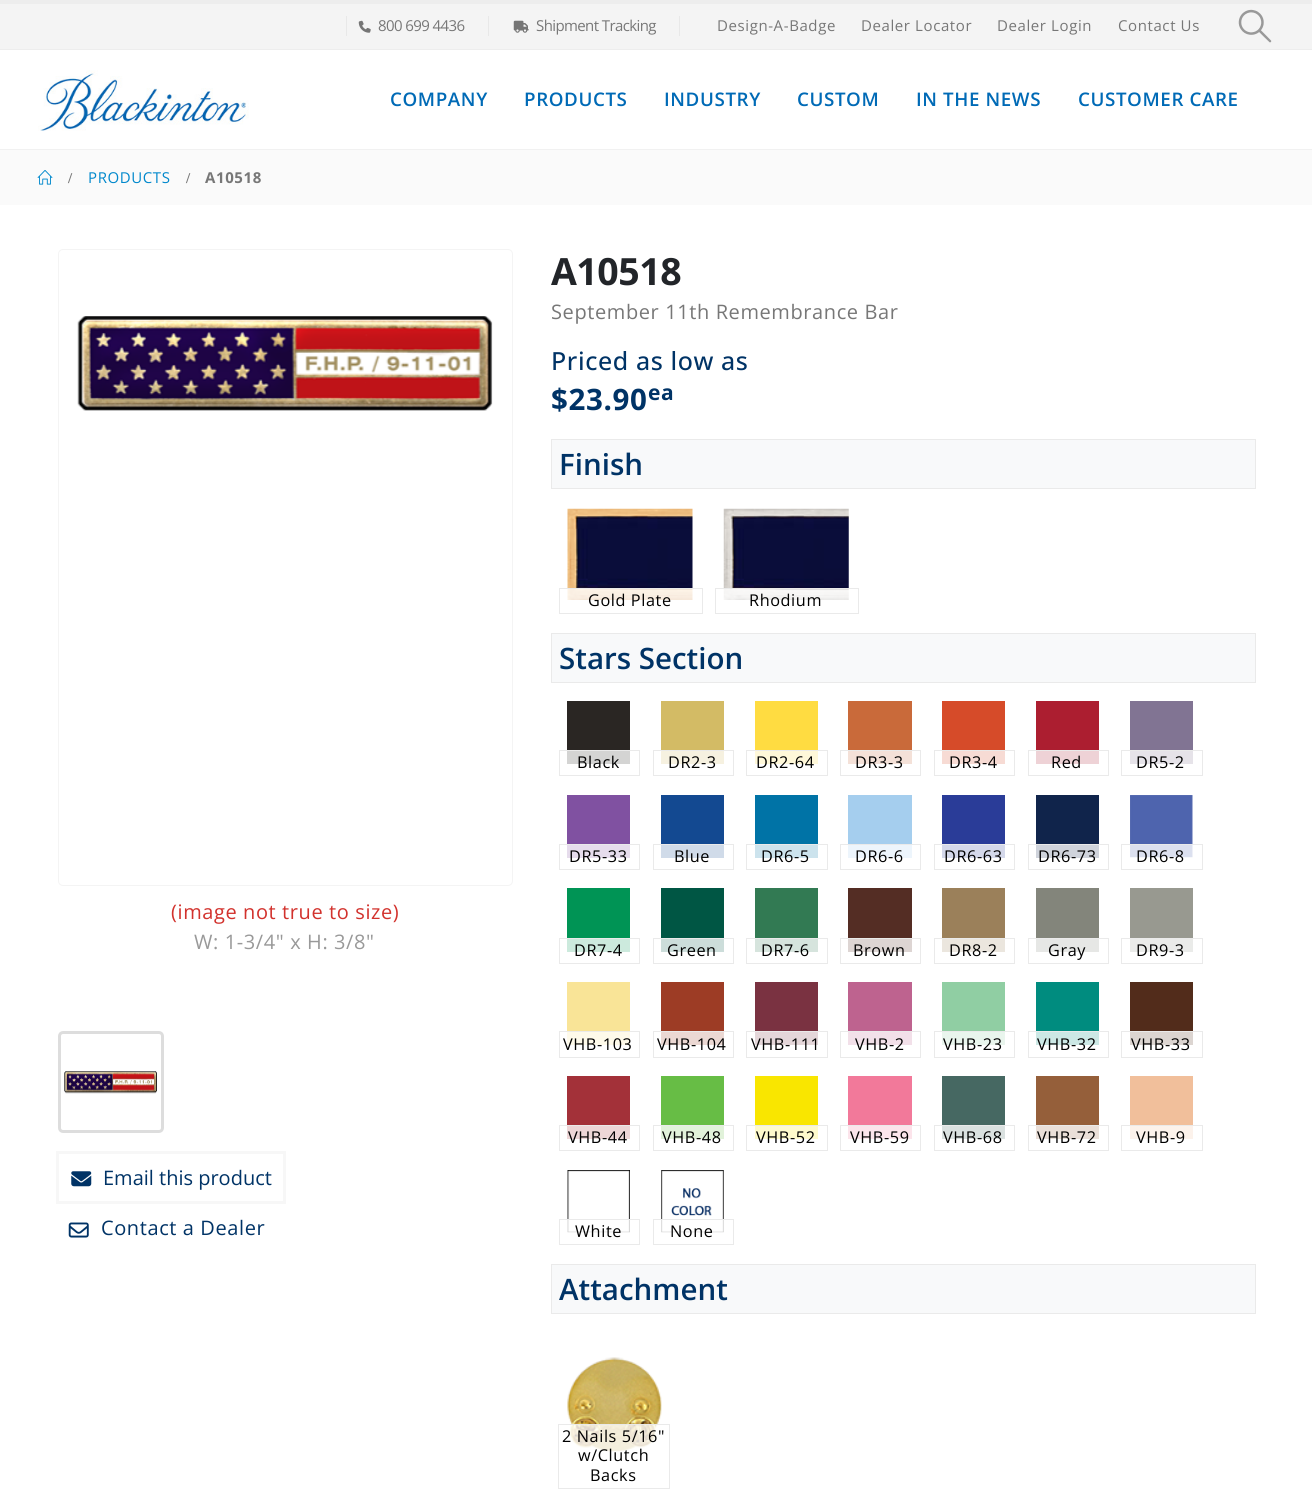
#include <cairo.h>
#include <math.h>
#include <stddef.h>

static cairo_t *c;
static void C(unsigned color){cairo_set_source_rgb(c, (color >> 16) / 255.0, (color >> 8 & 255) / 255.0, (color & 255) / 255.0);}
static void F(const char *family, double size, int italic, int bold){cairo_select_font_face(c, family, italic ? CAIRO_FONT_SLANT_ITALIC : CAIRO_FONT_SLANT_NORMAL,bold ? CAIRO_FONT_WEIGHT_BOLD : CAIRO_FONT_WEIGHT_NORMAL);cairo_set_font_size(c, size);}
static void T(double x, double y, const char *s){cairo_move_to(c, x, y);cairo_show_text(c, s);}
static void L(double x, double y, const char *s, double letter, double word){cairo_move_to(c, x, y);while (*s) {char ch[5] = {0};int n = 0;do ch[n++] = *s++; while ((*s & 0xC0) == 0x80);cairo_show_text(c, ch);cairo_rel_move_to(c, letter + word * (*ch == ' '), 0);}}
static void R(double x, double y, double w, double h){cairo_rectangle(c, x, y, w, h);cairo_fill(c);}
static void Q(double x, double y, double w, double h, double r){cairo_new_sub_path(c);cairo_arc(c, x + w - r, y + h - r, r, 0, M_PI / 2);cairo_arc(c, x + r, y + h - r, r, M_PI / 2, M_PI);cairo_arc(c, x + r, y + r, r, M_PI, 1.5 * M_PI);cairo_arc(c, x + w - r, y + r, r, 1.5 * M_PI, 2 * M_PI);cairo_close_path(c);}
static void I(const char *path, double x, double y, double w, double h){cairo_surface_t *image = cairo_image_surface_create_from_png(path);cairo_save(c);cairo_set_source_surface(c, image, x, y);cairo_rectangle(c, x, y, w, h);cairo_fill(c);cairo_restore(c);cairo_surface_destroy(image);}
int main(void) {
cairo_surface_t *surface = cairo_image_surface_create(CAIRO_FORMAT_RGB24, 1312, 1492);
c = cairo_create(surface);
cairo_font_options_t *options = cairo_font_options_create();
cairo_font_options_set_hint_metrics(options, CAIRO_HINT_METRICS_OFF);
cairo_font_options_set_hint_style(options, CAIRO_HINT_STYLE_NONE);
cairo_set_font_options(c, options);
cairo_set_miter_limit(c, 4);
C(0xffffff);
cairo_paint(c);
C(0xededed);
R(0,0,1312,4);
C(0xf4f4f4);
R(0,4,1312,45);
C(0xededed);
R(0,49,1312,1);
C(0xe8e8e8);
R(346,16,1,20);
I("1.png",358,20,13,13);
F("Open Sans",15,0,0);
C(0x777777);
L(378,31,"800 699 4436",-.6,0);
C(0xe8e8e8);
R(488,16,1,20);
I("2.png",513,20,16,13);
C(0x777777);
L(536,31,"Shipment Tracking",-.6,0);
C(0xe8e8e8);
R(679,16,1,20);
C(0x777777);
L(717,31,"Design-A-Badge",.6,0);
L(861,31,"Dealer Locator",.6,0);
L(997,31,"Dealer Login",.6,0);
L(1118,31,"Contact Us",.6,0);
I("3.png",1238,9,34,34);
I("4.png",38,70,211,61);
F("Open Sans SemiBold",18.75,0,0);
C(0x006ab6);
L(390,106,"COMPANY",.6,0);
L(524,106,"PRODUCTS",.6,0);
L(664,106,"INDUSTRY",.6,0);
L(797,106,"CUSTOM",.6,0);
L(916,106,"IN THE NEWS",.6,0);
L(1078,106,"CUSTOMER CARE",.6,0);
C(0xfafafa);
R(0,150,1312,55);
C(0xf1f1f1);
R(0,149,1312,1);
I("5.png",37,170,16,15);
F("Liberation Serif",15,0,1);
C(0x777777);
L(68,183,"/",.6,0);
F("Open Sans",15,0,0);
C(0x0088cc);
L(88,183,"PRODUCTS",.6,0);
F("Liberation Serif",15,0,1);
C(0x777777);
L(186,183,"/",.6,0);
F("Open Sans",15,0,1);
L(205,183,"A10518",.6,0);
Q(58.5,249.5,454,636,4.5);
C(0xf4f4f4);
cairo_set_line_width(c,1);
cairo_stroke(c);
I("6.png",77,316,416,95);
F("Open Sans",20,0,0);
C(0xd2322d);
L(171,919,"(image not true to size)",.6,0);
C(0x999999);
L(194,949,"W: 1-3/4\" x H: 3/8\"",.6,0);
Q(59.5,1032.5,103,99,3.5);
C(0xdddddd);
cairo_set_line_width(c,3);
cairo_stroke(c);
I("7.png",64,1071,93,23);
cairo_rectangle(c,57.5,1152.5,227,50);
C(0xf7f7f7);
cairo_stroke(c);
I("8.png",71,1171,21,16);
C(0x003366);
T(103,1185,"Email this product");
I("9.png",68,1222,21,16);
L(101,1235,"Contact a Dealer",.6,0);
F("Open Sans",37.5,0,1);
C(0x222529);
L(551,285,"A10518",-.5,0);
F("Open Sans",20,0,0);
C(0x777777);
L(551,319,"September 11th Remembrance Bar",.6,0);
F("Open Sans Medium",25,0,0);
C(0x003366);
L(551,370,"Priced as low as",.6,0);
F("Open Sans",29.5,0,1);
L(551,410,"$23.90",.6,0);
F("Open Sans",21,0,1);
L(648,400,"ea",.6,0);
C(0xf8f9fa);
cairo_rectangle(c,551.5,439.5,704,49);
cairo_fill_preserve(c);
C(0xeaeaea);
cairo_set_line_width(c,1);
cairo_stroke(c);
F("Open Sans SemiBold",29.5,0,0);
C(0x003366);
T(559,475,"Finish");
I("10.png",567,508,126,92);
cairo_set_source_rgba(c,1,1,1,0.8);
R(567,589,126,11);
cairo_rectangle(c,559.5,588.5,143,25);
C(0xeaeaea);
cairo_stroke(c);
F("Open Sans",16.25,0,0);
C(0x000000);
L(588,606,"Gold Plate",.6,0);
I("11.png",723,508,126,92);
cairo_set_source_rgba(c,1,1,1,0.8);
R(723,589,126,11);
cairo_rectangle(c,715.5,588.5,143,25);
C(0xeaeaea);
cairo_stroke(c);
C(0x000000);
L(749,606,"Rhodium",.6,0);
C(0xf8f9fa);
cairo_rectangle(c,551.5,633.5,704,49);
cairo_fill_preserve(c);
C(0xeaeaea);
cairo_stroke(c);
F("Open Sans SemiBold",29.5,0,0);
C(0x003366);
T(559,669,"Stars Section");
C(0x2a2623);
R(567,701,63,49);
C(0xd4d4d3);
R(567,751,63,13);
cairo_rectangle(c,559.5,750.5,80,25);
C(0xeaeaea);
cairo_stroke(c);
F("Open Sans",16.25,0,0);
C(0x000000);
L(577,768,"Black",.6,0);
C(0xd3bb65);
R(661,701,63,49);
C(0xf6f1e0);
R(661,751,63,13);
cairo_rectangle(c,653.5,750.5,80,25);
C(0xeaeaea);
cairo_stroke(c);
C(0x000000);
L(668,768,"DR2-3",.6,0);
C(0xffdc41);
R(755,701,63,49);
C(0xfff8d9);
R(755,751,63,13);
cairo_rectangle(c,746.5,750.5,81,25);
C(0xeaeaea);
cairo_stroke(c);
C(0x000000);
L(756,768,"DR2-64",.6,0);
C(0xc96a3a);
R(848,701,64,49);
C(0xf4e1d8);
R(848,751,64,13);
cairo_rectangle(c,840.5,750.5,80,25);
C(0xeaeaea);
cairo_stroke(c);
C(0x000000);
L(855,768,"DR3-3",.6,0);
C(0xd64b29);
R(942,701,63,49);
C(0xf7dbd4);
R(942,751,63,13);
cairo_rectangle(c,934.5,750.5,80,25);
C(0xeaeaea);
cairo_stroke(c);
C(0x000000);
L(949,768,"DR3-4",.6,0);
C(0xac1e30);
R(1036,701,63,49);
C(0xeed2d6);
R(1036,751,63,13);
cairo_rectangle(c,1028.5,750.5,80,25);
C(0xeaeaea);
cairo_stroke(c);
C(0x000000);
L(1051,768,"Red",.6,0);
C(0x817493);
R(1130,701,63,49);
C(0xe6e3e9);
R(1130,751,63,13);
cairo_rectangle(c,1121.5,750.5,81,25);
C(0xeaeaea);
cairo_stroke(c);
C(0x000000);
L(1136,768,"DR5-2",.6,0);
C(0x8051a1);
R(567,795,63,49);
C(0xe6dcec);
R(567,845,63,13);
cairo_rectangle(c,559.5,844.5,80,25);
C(0xeaeaea);
cairo_stroke(c);
C(0x000000);
L(569,862,"DR5-33",.6,0);
C(0x134991);
R(661,795,63,49);
C(0xd0dbe9);
R(661,845,63,13);
cairo_rectangle(c,653.5,844.5,80,25);
C(0xeaeaea);
cairo_stroke(c);
C(0x000000);
L(674,862,"Blue",.6,0);
C(0x0073a6);
R(755,795,63,49);
C(0xcce3ed);
R(755,845,63,13);
cairo_rectangle(c,746.5,844.5,81,25);
C(0xeaeaea);
cairo_stroke(c);
C(0x000000);
L(761,862,"DR6-5",.6,0);
C(0xa5ceee);
R(848,795,64,49);
C(0xedf5fc);
R(848,845,64,13);
cairo_rectangle(c,840.5,844.5,80,25);
C(0xeaeaea);
cairo_stroke(c);
C(0x000000);
L(855,862,"DR6-6",.6,0);
C(0x2a3c98);
R(942,795,63,49);
C(0xd4d8ea);
R(942,845,63,13);
cairo_rectangle(c,934.5,844.5,80,25);
C(0xeaeaea);
cairo_stroke(c);
C(0x000000);
L(944,862,"DR6-63",.6,0);
C(0x10244b);
R(1036,795,63,49);
C(0xcfd3db);
R(1036,845,63,13);
cairo_rectangle(c,1028.5,844.5,80,25);
C(0xeaeaea);
cairo_stroke(c);
C(0x000000);
L(1038,862,"DR6-73",.6,0);
I("12.png",1130,795,63,63);
cairo_set_source_rgba(c,1,1,1,0.8);
R(1130,845,63,13);
cairo_rectangle(c,1121.5,844.5,81,25);
C(0xeaeaea);
cairo_stroke(c);
C(0x000000);
L(1136,862,"DR6-8",.6,0);
C(0x009455);
R(567,888,63,50);
C(0xcceadd);
R(567,939,63,13);
cairo_rectangle(c,559.5,938.5,80,25);
C(0xeaeaea);
cairo_stroke(c);
C(0x000000);
L(574,956,"DR7-4",.6,0);
C(0x005644);
R(661,888,63,50);
C(0xccddda);
R(661,939,63,13);
cairo_rectangle(c,653.5,938.5,80,25);
C(0xeaeaea);
cairo_stroke(c);
C(0x000000);
L(667,956,"Green",.6,0);
C(0x327a53);
R(755,888,63,50);
C(0xd6e4dd);
R(755,939,63,13);
cairo_rectangle(c,746.5,938.5,81,25);
C(0xeaeaea);
cairo_stroke(c);
C(0x000000);
L(761,956,"DR7-6",.6,0);
C(0x542d24);
R(848,888,64,50);
C(0xddd5d3);
R(848,939,64,13);
cairo_rectangle(c,840.5,938.5,80,25);
C(0xeaeaea);
cairo_stroke(c);
C(0x000000);
L(853,956,"Brown",.6,0);
C(0x9b805a);
R(942,888,63,50);
C(0xebe6de);
R(942,939,63,13);
cairo_rectangle(c,934.5,938.5,80,25);
C(0xeaeaea);
cairo_stroke(c);
C(0x000000);
L(949,956,"DR8-2",.6,0);
C(0x83857b);
R(1036,888,63,50);
C(0xe6e7e5);
R(1036,939,63,13);
cairo_rectangle(c,1028.5,938.5,80,25);
C(0xeaeaea);
cairo_stroke(c);
C(0x000000);
L(1048,956,"Gray",.6,0);
C(0x989990);
R(1130,888,63,50);
C(0xeaebe9);
R(1130,939,63,13);
cairo_rectangle(c,1121.5,938.5,81,25);
C(0xeaeaea);
cairo_stroke(c);
C(0x000000);
L(1136,956,"DR9-3",.6,0);
C(0xf9e497);
R(567,982,63,49);
C(0xfefaea);
R(567,1032,63,13);
cairo_rectangle(c,559.5,1031.5,80,26);
C(0xeaeaea);
cairo_stroke(c);
C(0x000000);
L(563,1050,"VHB-103",.6,0);
C(0x9d3c25);
R(661,982,63,49);
C(0xebd8d3);
R(661,1032,63,13);
cairo_rectangle(c,653.5,1031.5,80,26);
C(0xeaeaea);
cairo_stroke(c);
C(0x000000);
L(657,1050,"VHB-104",.6,0);
C(0x7a3241);
R(755,982,63,49);
C(0xe4d6d9);
R(755,1032,63,13);
cairo_rectangle(c,746.5,1031.5,81,26);
C(0xeaeaea);
cairo_stroke(c);
C(0x000000);
L(751,1050,"VHB-111",.6,0);
C(0xbe638f);
R(848,982,64,49);
C(0xf2e0e9);
R(848,1032,64,13);
cairo_rectangle(c,840.5,1031.5,80,26);
C(0xeaeaea);
cairo_stroke(c);
C(0x000000);
L(855,1050,"VHB-2",.6,0);
C(0x90cea3);
R(942,982,63,49);
C(0xe9f5ed);
R(942,1032,63,13);
cairo_rectangle(c,934.5,1031.5,80,26);
C(0xeaeaea);
cairo_stroke(c);
C(0x000000);
L(943,1050,"VHB-23",.6,0);
C(0x008c7f);
R(1036,982,63,49);
C(0xcce8e5);
R(1036,1032,63,13);
cairo_rectangle(c,1028.5,1031.5,80,26);
C(0xeaeaea);
cairo_stroke(c);
C(0x000000);
L(1037,1050,"VHB-32",.6,0);
C(0x522c1b);
R(1130,982,63,49);
C(0xdcd5d1);
R(1130,1032,63,13);
cairo_rectangle(c,1121.5,1031.5,81,26);
C(0xeaeaea);
cairo_stroke(c);
C(0x000000);
L(1131,1050,"VHB-33",.6,0);
C(0xa33139);
R(567,1076,63,49);
C(0xedd6d7);
R(567,1126,63,13);
cairo_rectangle(c,559.5,1125.5,80,25);
C(0xeaeaea);
cairo_stroke(c);
C(0x000000);
L(568,1143,"VHB-44",.6,0);
C(0x67bd45);
R(661,1076,63,49);
C(0xe1f2da);
R(661,1126,63,13);
cairo_rectangle(c,653.5,1125.5,80,25);
C(0xeaeaea);
cairo_stroke(c);
C(0x000000);
L(662,1143,"VHB-48",.6,0);
C(0xf9e600);
R(755,1076,63,49);
C(0xfefacc);
R(755,1126,63,13);
cairo_rectangle(c,746.5,1125.5,81,25);
C(0xeaeaea);
cairo_stroke(c);
C(0x000000);
L(756,1143,"VHB-52",.6,0);
C(0xf2799a);
R(848,1076,64,49);
C(0xfce4eb);
R(848,1126,64,13);
cairo_rectangle(c,840.5,1125.5,80,25);
C(0xeaeaea);
cairo_stroke(c);
C(0x000000);
L(850,1143,"VHB-59",.6,0);
C(0x466862);
R(942,1076,63,49);
C(0xdae1e0);
R(942,1126,63,13);
cairo_rectangle(c,934.5,1125.5,80,25);
C(0xeaeaea);
cairo_stroke(c);
C(0x000000);
L(943,1143,"VHB-68",.6,0);
C(0x955f3a);
R(1036,1076,63,49);
C(0xeadfd8);
R(1036,1126,63,13);
cairo_rectangle(c,1028.5,1125.5,80,25);
C(0xeaeaea);
cairo_stroke(c);
C(0x000000);
L(1037,1143,"VHB-72",.6,0);
C(0xf1bf9b);
R(1130,1076,63,49);
C(0xfcf2eb);
R(1130,1126,63,13);
cairo_rectangle(c,1121.5,1125.5,81,25);
C(0xeaeaea);
cairo_stroke(c);
C(0x000000);
L(1136,1143,"VHB-9",.6,0);
I("13.png",567,1170,63,63);
cairo_set_source_rgba(c,1,1,1,0.8);
R(567,1220,63,13);
cairo_rectangle(c,559.5,1219.5,80,25);
C(0xeaeaea);
cairo_stroke(c);
C(0x000000);
L(575,1237,"White",.6,0);
I("14.png",661,1170,63,63);
cairo_set_source_rgba(c,1,1,1,0.8);
R(661,1220,63,13);
cairo_rectangle(c,653.5,1219.5,80,25);
C(0xeaeaea);
cairo_stroke(c);
C(0x000000);
L(670,1237,"None",.6,0);
C(0xf8f9fa);
cairo_rectangle(c,551.5,1264.5,704,49);
cairo_fill_preserve(c);
C(0xeaeaea);
cairo_stroke(c);
F("Open Sans SemiBold",29.5,0,0);
C(0x003366);
T(559,1300,"Attachment");
I("15.png",567,1357,95,95);
cairo_set_source_rgba(c,1,1,1,0.8);
R(569,1425,89,27);
cairo_rectangle(c,558.5,1424.5,111,64);
C(0xeaeaea);
cairo_stroke(c);
F("Open Sans",16.25,0,0);
C(0x000000);
L(562,1442,"2 Nails 5/16\"",.6,0);
L(578,1461,"w/Clutch",.6,0);
L(590,1481,"Backs",.6,0);
cairo_surface_write_to_png(surface, "o.png");
cairo_font_options_destroy(options);
cairo_destroy(c);
cairo_surface_destroy(surface);
return 0;
}
